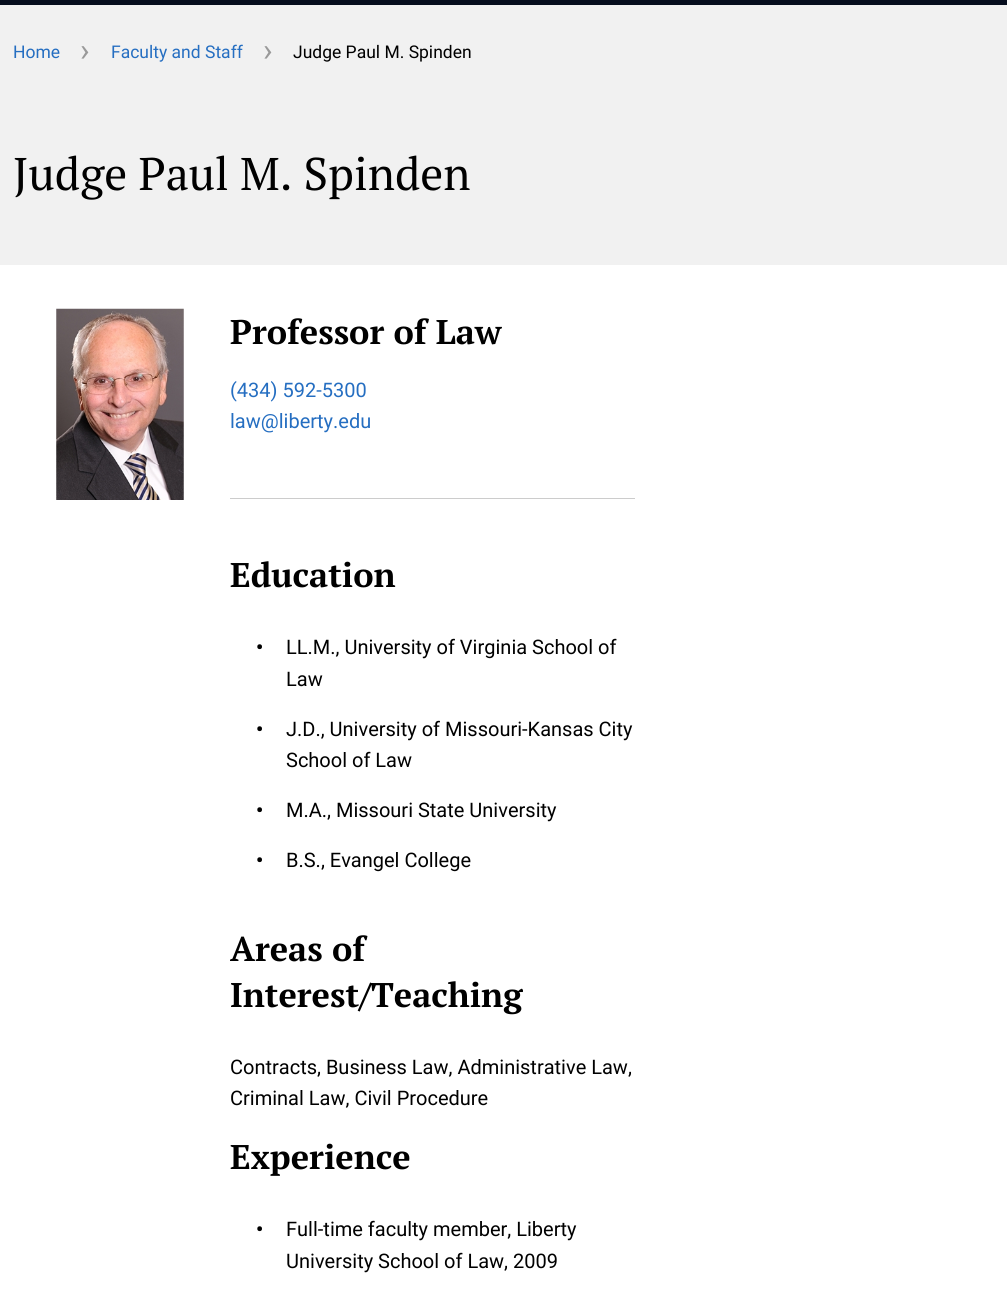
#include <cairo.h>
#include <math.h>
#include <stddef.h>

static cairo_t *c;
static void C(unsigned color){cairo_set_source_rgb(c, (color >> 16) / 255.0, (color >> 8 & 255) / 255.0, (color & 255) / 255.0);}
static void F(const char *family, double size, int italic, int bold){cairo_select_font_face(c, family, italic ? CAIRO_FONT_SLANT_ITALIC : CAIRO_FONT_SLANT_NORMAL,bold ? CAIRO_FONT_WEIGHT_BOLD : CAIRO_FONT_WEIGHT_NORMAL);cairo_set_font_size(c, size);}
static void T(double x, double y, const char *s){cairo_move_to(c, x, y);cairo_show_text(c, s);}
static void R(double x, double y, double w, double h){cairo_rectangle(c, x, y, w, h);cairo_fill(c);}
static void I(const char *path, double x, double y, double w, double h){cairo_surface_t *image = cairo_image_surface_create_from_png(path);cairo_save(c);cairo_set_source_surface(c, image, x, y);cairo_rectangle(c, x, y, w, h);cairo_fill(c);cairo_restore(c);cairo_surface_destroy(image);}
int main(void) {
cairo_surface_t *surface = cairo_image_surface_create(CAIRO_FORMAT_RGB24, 1007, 1303);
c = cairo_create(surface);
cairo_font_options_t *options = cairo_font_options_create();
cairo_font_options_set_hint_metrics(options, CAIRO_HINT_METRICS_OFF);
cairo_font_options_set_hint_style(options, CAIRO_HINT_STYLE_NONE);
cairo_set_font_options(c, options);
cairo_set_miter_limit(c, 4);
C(0xffffff);
cairo_paint(c);
C(0x060e1e);
R(0,0,1007,5);
C(0xf1f1f1);
R(0,5,1007,260);
F("Roboto",17.5,0,0);
C(0x256ec1);
T(13,58,"Home");
F("Roboto",32,0,0);
C(0x999999);
T(80,61,"›");
F("Roboto",17.5,0,0);
C(0x256ec1);
T(111,58,"Faculty and Staff");
F("Roboto",32,0,0);
C(0x999999);
T(263,61,"›");
F("Roboto",17.5,0,0);
C(0x000000);
T(293,58,"Judge Paul M. Spinden");
F("PT Serif",45.75,0,0);
T(13,190,"Judge Paul M. Spinden");
I("1.png",56,308,128,192);
F("PT Serif",34.25,0,1);
T(230,344,"Professor of Law");
F("Roboto",20,0,0);
C(0x256ec1);
T(230,397,"(434) 592-5300");
T(230,428,"law@liberty.edu");
C(0xcccccc);
R(230,498,405,1);
F("PT Serif",34.25,0,1);
C(0x000000);
T(230,587,"Education");
F("Roboto",20,0,1);
T(256,654,"•");
F("Roboto",20,0,0);
T(286,654,"LL.M., University of Virginia School of");
T(286,686,"Law");
F("Roboto",20,0,1);
T(256,736,"•");
F("Roboto",20,0,0);
T(286,736,"J.D., University of Missouri-Kansas City");
T(286,767,"School of Law");
F("Roboto",20,0,1);
T(256,817,"•");
F("Roboto",20,0,0);
T(286,817,"M.A., Missouri State University");
F("Roboto",20,0,1);
T(256,867,"•");
F("Roboto",20,0,0);
T(286,867,"B.S., Evangel College");
F("PT Serif",34.25,0,1);
T(230,961,"Areas of");
T(230,1007,"Interest/Teaching");
F("Roboto",20,0,0);
T(230,1074,"Contracts, Business Law, Administrative Law,");
T(230,1105,"Criminal Law, Civil Procedure");
F("PT Serif",34.25,0,1);
T(230,1169,"Experience");
F("Roboto",20,0,1);
T(256,1236,"•");
F("Roboto",20,0,0);
T(286,1236,"Full-time faculty member, Liberty");
T(286,1268,"University School of Law, 2009");
cairo_surface_write_to_png(surface, "o.png");
cairo_font_options_destroy(options);
cairo_destroy(c);
cairo_surface_destroy(surface);
return 0;
}
